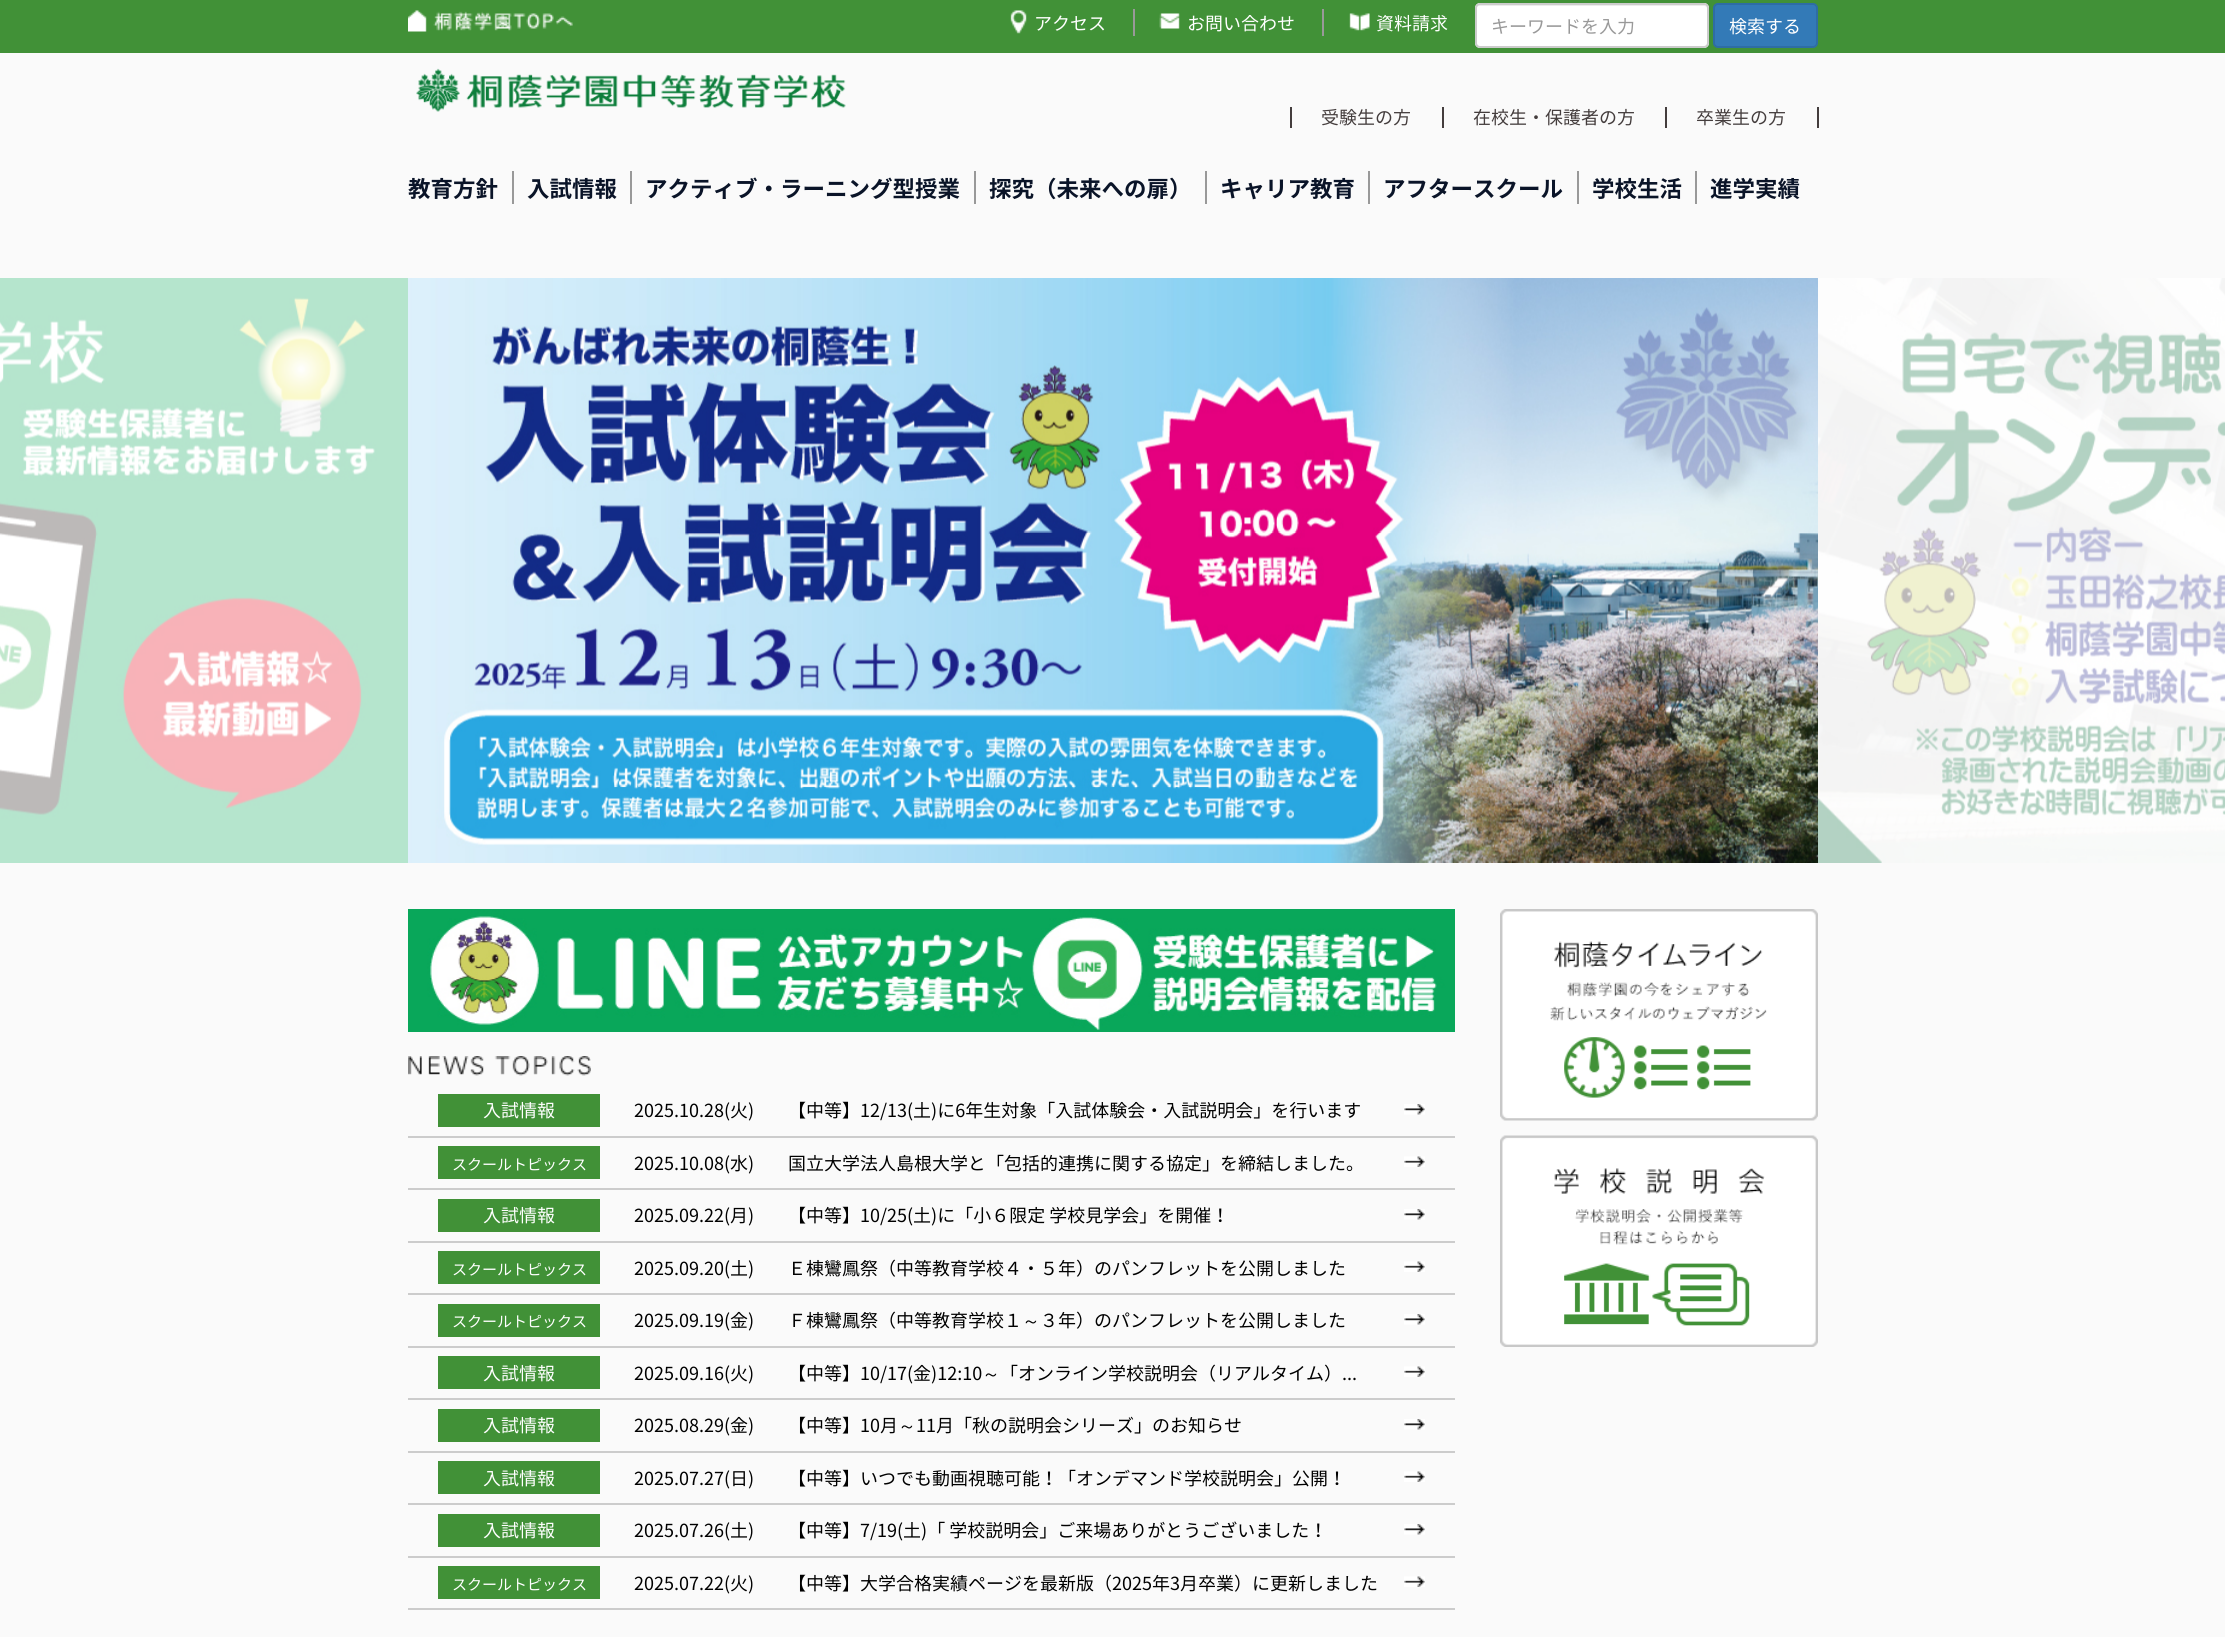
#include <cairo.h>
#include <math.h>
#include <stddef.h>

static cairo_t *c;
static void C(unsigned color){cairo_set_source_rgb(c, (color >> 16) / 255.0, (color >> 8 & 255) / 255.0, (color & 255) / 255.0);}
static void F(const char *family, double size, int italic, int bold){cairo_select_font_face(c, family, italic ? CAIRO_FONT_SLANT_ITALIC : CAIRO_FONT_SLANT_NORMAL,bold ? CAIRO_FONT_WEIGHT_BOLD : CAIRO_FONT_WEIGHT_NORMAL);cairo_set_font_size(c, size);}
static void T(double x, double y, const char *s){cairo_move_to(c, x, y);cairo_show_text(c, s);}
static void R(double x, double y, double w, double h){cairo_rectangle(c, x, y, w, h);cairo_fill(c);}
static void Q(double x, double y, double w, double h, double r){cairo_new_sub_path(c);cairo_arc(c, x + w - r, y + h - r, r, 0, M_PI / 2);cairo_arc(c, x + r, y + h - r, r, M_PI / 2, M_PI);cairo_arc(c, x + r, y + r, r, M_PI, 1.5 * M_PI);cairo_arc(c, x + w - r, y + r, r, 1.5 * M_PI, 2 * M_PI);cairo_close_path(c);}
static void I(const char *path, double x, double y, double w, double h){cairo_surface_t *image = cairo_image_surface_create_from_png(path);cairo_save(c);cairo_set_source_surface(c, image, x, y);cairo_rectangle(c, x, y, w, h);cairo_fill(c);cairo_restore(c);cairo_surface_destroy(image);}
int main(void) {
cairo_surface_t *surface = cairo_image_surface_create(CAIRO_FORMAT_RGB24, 2225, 1637);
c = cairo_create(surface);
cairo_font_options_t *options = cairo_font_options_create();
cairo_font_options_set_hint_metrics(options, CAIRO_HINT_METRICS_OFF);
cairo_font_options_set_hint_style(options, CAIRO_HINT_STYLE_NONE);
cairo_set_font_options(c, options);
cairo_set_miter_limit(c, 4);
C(0xfafafa);
cairo_paint(c);
C(0x419137);
R(0,0,2225,53);
I("1.png",408,10,165,22);
I("2.png",1010,10,17,24);
F("Noto Sans JP",18,0,0);
C(0xffffff);
T(1034,30,"アクセス");
C(0x999999);
R(1133,9,2,27);
I("3.png",1159,13,21,16);
C(0xffffff);
T(1187,30,"お問い合わせ");
C(0x999999);
R(1322,9,2,27);
I("4.png",1349,13,21,18);
C(0xffffff);
T(1376,30,"資料請求");
Q(1475,3,234,45,5);
cairo_fill(c);
C(0xececec);
cairo_new_path(c);
cairo_move_to(c,1479,6);
cairo_line_to(c,1704,6);
cairo_curve_to(c,1706,6,1707,7,1707,9);
cairo_curve_to(c,1707,7,1706,5,1704,5);
cairo_line_to(c,1479,5);
cairo_curve_to(c,1477,5,1476,7,1476,9);
cairo_curve_to(c,1476,7,1477,6,1479,6);
cairo_close_path(c);
cairo_fill(c);
Q(1476,4,232,43,4);
C(0xcccccc);
cairo_stroke(c);
C(0x999999);
T(1491,33,"キーワードを入力");
C(0x337ab7);
Q(1714,4,103,43,4);
cairo_fill_preserve(c);
C(0x2e6da4);
cairo_stroke(c);
C(0xffffff);
T(1729,33,"検索する");
I("5.png",416,68,430,44);
C(0x443d3d);
R(1442,107,2,21);
R(1290,107,2,21);
T(1321,124,"受験生の方");
R(1665,107,2,21);
T(1473,124,"在校生・保護者の方");
R(1817,107,2,21);
T(1696,124,"卒業生の方");
F("Noto Sans JP",22.5,0,1);
C(0x0a1428);
T(408,197,"教育方針");
C(0x999999);
R(512,171,2,33);
C(0x0a1428);
T(527,197,"入試情報");
C(0x999999);
R(630,171,2,33);
C(0x0a1428);
T(645,197,"アクティブ・ラーニング型授業");
C(0x999999);
R(974,171,2,33);
C(0x0a1428);
T(989,197,"探究（未来への扉）");
C(0x999999);
R(1205,171,2,33);
C(0x0a1428);
T(1220,197,"キャリア教育");
C(0x999999);
R(1368,171,2,33);
C(0x0a1428);
T(1383,197,"アフタースクール");
C(0x999999);
R(1577,171,2,33);
C(0x0a1428);
T(1592,197,"学校生活");
C(0x999999);
R(1695,171,2,33);
C(0x0a1428);
T(1710,197,"進学実績");
I("6.png",0,278,408,585);
I("7.png",408,278,1410,585);
I("8.png",1818,278,407,585);
I("9.png",408,909,1047,123);
I("10.png",408,1056,183,20);
I("11.png",1404,1104,21,11);
C(0xcccccc);
R(408,1136,1047,2);
C(0x419137);
R(438,1094,162,33);
F("Noto Sans JP",18,0,0);
C(0xffffff);
T(483,1117,"入試情報");
C(0x000000);
T(634,1117,"2025.10.28(火)");
T(788,1117,"【中等】12/13(土)に6年生対象「入試体験会・入試説明会」を行います");
I("12.png",1404,1156,21,11);
C(0xcccccc);
R(408,1188,1047,2);
C(0x419137);
R(438,1146,162,33);
F("Noto Sans JP",15,0,0);
C(0xffffff);
T(452,1170,"スクールトピックス");
F("Noto Sans JP",18,0,0);
C(0x000000);
T(634,1170,"2025.10.08(水)");
T(788,1170,"国立大学法人島根大学と「包括的連携に関する協定」を締結しました。");
I("11.png",1404,1209,21,11);
C(0xcccccc);
R(408,1241,1047,2);
C(0x419137);
R(438,1199,162,33);
C(0xffffff);
T(483,1222,"入試情報");
C(0x000000);
T(634,1222,"2025.09.22(月)");
T(788,1222,"【中等】10/25(土)に「小６限定 学校見学会」を開催！");
I("12.png",1404,1261,21,11);
C(0xcccccc);
R(408,1293,1047,2);
C(0x419137);
R(438,1251,162,33);
F("Noto Sans JP",15,0,0);
C(0xffffff);
T(452,1275,"スクールトピックス");
F("Noto Sans JP",18,0,0);
C(0x000000);
T(634,1275,"2025.09.20(土)");
T(788,1275,"Ｅ棟鸞鳳祭（中等教育学校４・５年）のパンフレットを公開しました");
I("11.png",1404,1314,21,11);
C(0xcccccc);
R(408,1346,1047,2);
C(0x419137);
R(438,1304,162,33);
F("Noto Sans JP",15,0,0);
C(0xffffff);
T(452,1327,"スクールトピックス");
F("Noto Sans JP",18,0,0);
C(0x000000);
T(634,1327,"2025.09.19(金)");
T(788,1327,"Ｆ棟鸞鳳祭（中等教育学校１");
F("WenQuanYi Zen Hei Medium",18,0,0);
T(1022,1327,"～");
F("Noto Sans JP",18,0,0);
T(1040,1327,"３年）のパンフレットを公開しました");
I("12.png",1404,1366,21,11);
C(0xcccccc);
R(408,1398,1047,2);
C(0x419137);
R(438,1356,162,33);
C(0xffffff);
T(483,1380,"入試情報");
C(0x000000);
T(634,1380,"2025.09.16(火)");
T(788,1380,"【中等】10/17(金)12:10");
F("WenQuanYi Zen Hei Medium",18,0,0);
T(982,1380,"～");
F("Noto Sans JP",18,0,0);
T(1000,1380,"「オンライン学校説明会（リアルタイム）...");
I("11.png",1404,1419,21,11);
C(0xcccccc);
R(408,1451,1047,2);
C(0x419137);
R(438,1409,162,33);
C(0xffffff);
T(483,1432,"入試情報");
C(0x000000);
T(634,1432,"2025.08.29(金)");
T(788,1432,"【中等】10月");
F("WenQuanYi Zen Hei Medium",18,0,0);
T(898,1432,"～");
F("Noto Sans JP",18,0,0);
T(916,1432,"11月「秋の説明会シリーズ」のお知らせ");
I("12.png",1404,1471,21,11);
C(0xcccccc);
R(408,1503,1047,2);
C(0x419137);
R(438,1461,162,33);
C(0xffffff);
T(483,1485,"入試情報");
C(0x000000);
T(634,1485,"2025.07.27(日)");
T(788,1485,"【中等】いつでも動画視聴可能！「オンデマンド学校説明会」公開！");
I("11.png",1404,1524,21,11);
C(0xcccccc);
R(408,1556,1047,2);
C(0x419137);
R(438,1514,162,33);
C(0xffffff);
T(483,1537,"入試情報");
C(0x000000);
T(634,1537,"2025.07.26(土)");
T(788,1537,"【中等】7/19(土)「 学校説明会」ご来場ありがとうございました！");
I("12.png",1404,1576,21,11);
C(0xcccccc);
R(408,1608,1047,2);
C(0x419137);
R(438,1566,162,33);
F("Noto Sans JP",15,0,0);
C(0xffffff);
T(452,1590,"スクールトピックス");
F("Noto Sans JP",18,0,0);
C(0x000000);
T(634,1590,"2025.07.22(火)");
T(788,1590,"【中等】大学合格実績ページを最新版（2025年3月卒業）に更新しました");
I("13.png",1500,909,318,212);
I("14.png",1500,1135,318,212);
cairo_surface_write_to_png(surface, "o.png");
cairo_font_options_destroy(options);
cairo_destroy(c);
cairo_surface_destroy(surface);
return 0;
}
